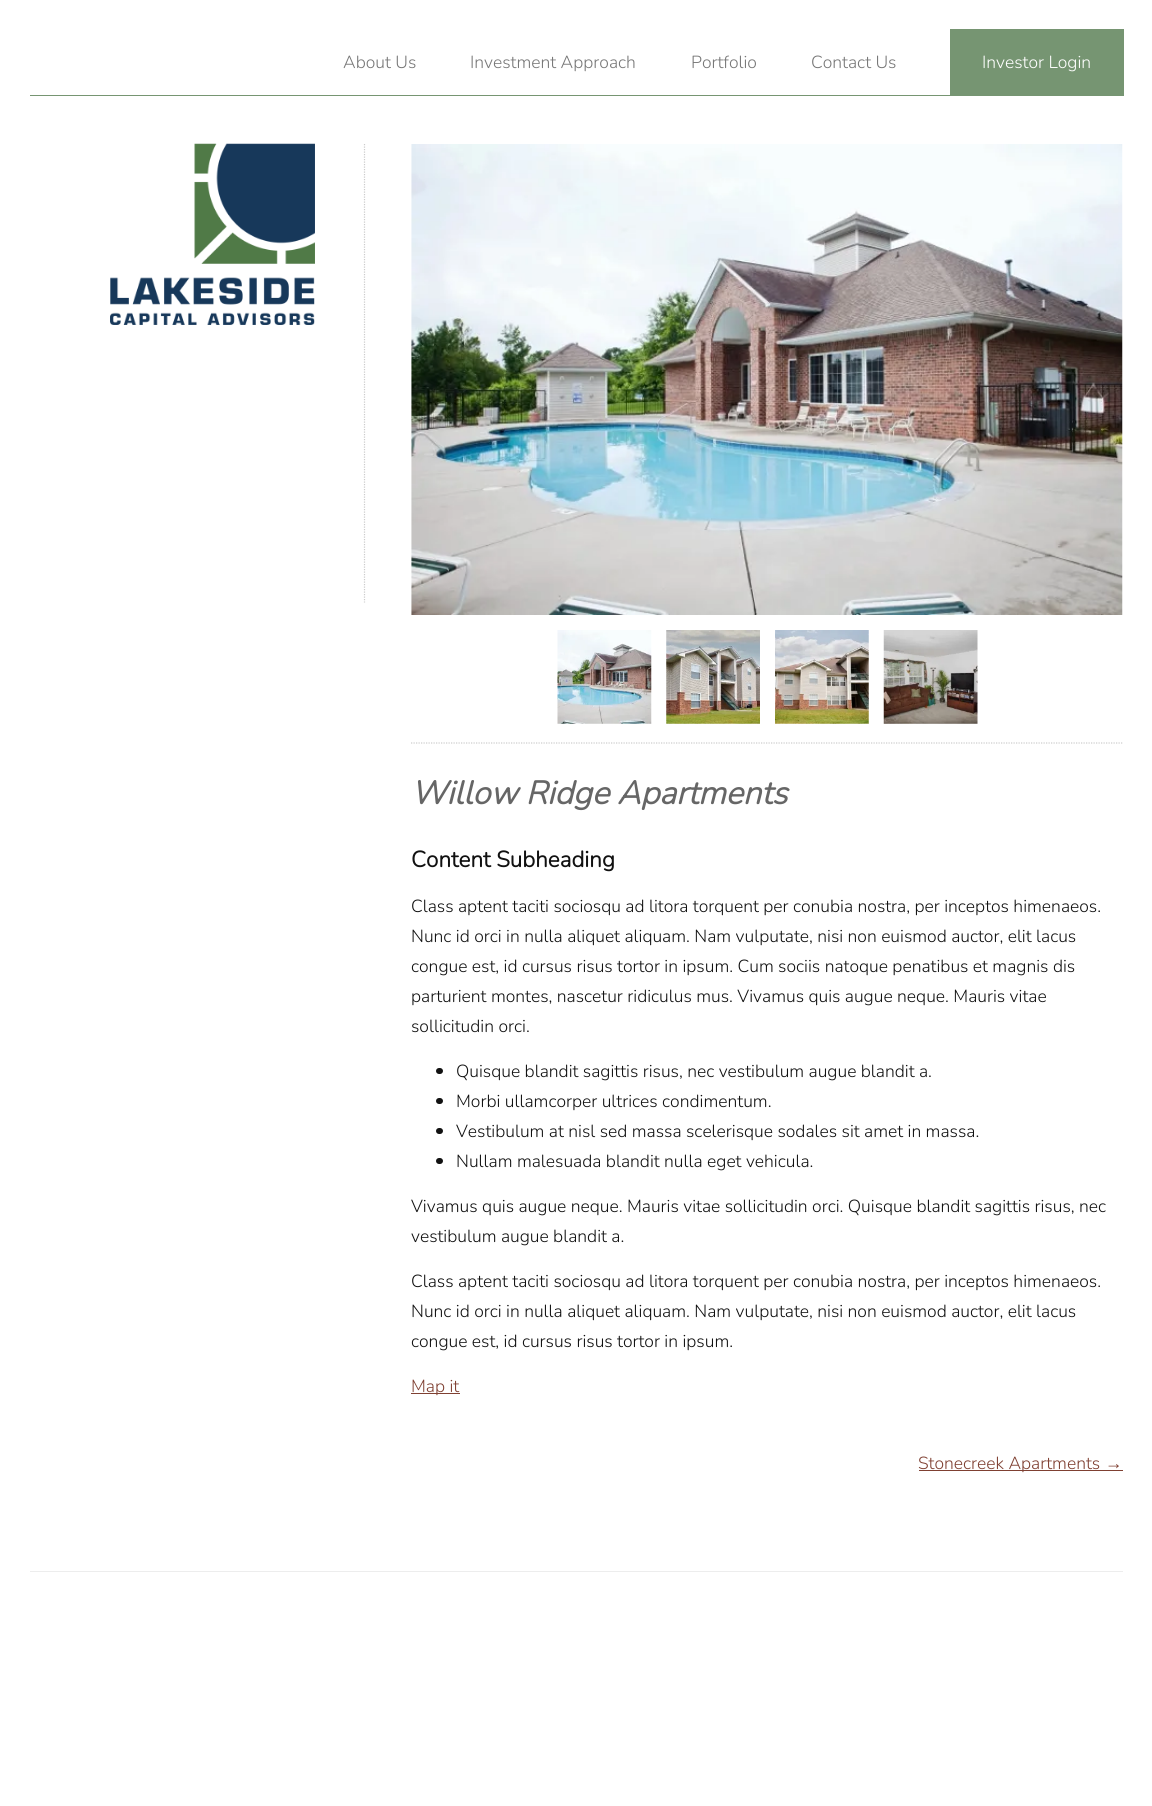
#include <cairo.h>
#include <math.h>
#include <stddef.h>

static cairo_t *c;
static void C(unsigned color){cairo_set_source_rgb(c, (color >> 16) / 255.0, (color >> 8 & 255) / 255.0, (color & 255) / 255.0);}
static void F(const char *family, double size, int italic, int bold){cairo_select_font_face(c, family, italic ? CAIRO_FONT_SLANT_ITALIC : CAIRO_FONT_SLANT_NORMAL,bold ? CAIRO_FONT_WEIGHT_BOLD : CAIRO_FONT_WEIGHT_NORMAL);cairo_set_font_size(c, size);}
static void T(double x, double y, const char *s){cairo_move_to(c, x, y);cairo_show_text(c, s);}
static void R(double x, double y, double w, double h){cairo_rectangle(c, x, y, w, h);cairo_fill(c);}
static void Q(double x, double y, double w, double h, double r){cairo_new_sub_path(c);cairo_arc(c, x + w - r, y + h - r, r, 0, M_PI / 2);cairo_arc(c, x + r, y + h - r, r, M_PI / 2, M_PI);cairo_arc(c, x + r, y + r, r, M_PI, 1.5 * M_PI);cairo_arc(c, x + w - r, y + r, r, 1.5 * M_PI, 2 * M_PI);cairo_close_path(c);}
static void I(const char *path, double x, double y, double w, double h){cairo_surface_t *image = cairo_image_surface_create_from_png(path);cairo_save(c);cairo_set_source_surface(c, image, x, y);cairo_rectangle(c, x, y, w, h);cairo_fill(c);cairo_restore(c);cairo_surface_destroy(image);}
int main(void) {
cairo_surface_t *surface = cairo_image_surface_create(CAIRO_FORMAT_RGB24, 1152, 1806);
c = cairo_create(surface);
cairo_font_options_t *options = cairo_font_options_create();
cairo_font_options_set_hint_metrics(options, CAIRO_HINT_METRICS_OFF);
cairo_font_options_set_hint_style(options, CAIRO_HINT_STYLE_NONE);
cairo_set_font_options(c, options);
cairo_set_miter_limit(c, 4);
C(0xffffff);
cairo_paint(c);
C(0x769572);
R(30,95,920,1);
F("Nunito ExtraLight",17.5,0,0);
C(0x777777);
T(343,68,"About Us");
T(470,68,"Investment Approach");
T(691,68,"Portfolio");
T(811,68,"Contact Us");
C(0x769572);
R(951,30,172,65);
cairo_rectangle(c,950.5,29.5,173,66);
cairo_set_line_width(c,1);
cairo_stroke(c);
C(0xffffff);
T(982,68,"Investor Login");
cairo_new_path(c);
cairo_move_to(c,364.5,144);
cairo_line_to(c,364.5,602.5);
C(0xcccccc);
cairo_set_line_width(c,1.2);
cairo_set_dash(c,(double[]){1.25,1.25},2,0);
cairo_stroke(c);
I("1.png",110,143,205,182);
I("2.png",411,144,712,471);
cairo_new_path(c);
cairo_move_to(c,411,743);
cairo_line_to(c,1122.5,743);
cairo_stroke(c);
I("3.png",557,630,95,94);
I("4.png",666,630,94,94);
I("5.png",775,630,94,94);
I("6.png",883,630,95,94);
F("Nunito",32.5,1,1);
C(0x666666);
T(411,804,"Willow Ridge Apartments");
F("Nunito",22.5,0,1);
C(0x111111);
T(411,867,"Content Subheading");
F("Nunito ExtraLight",17.5,0,0);
T(411,912,"Class aptent taciti sociosqu ad litora torquent per conubia nostra, per inceptos himenaeos.");
T(411,942,"Nunc id orci in nulla aliquet aliquam. Nam vulputate, nisi non euismod auctor, elit lacus");
T(411,972,"congue est, id cursus risus tortor in ipsum. Cum sociis natoque penatibus et magnis dis");
T(411,1002,"parturient montes, nascetur ridiculus mus. Vivamus quis augue neque. Mauris vitae");
T(411,1032,"sollicitudin orci.");
Q(436,1068,7,6,3);
cairo_fill(c);
T(456,1077,"Quisque blandit sagittis risus, nec vestibulum augue blandit a.");
Q(436,1098,7,6,3);
cairo_fill(c);
T(456,1107,"Morbi ullamcorper ultrices condimentum.");
Q(436,1128,7,6,3);
cairo_fill(c);
T(456,1137,"Vestibulum at nisl sed massa scelerisque sodales sit amet in massa.");
Q(436,1158,7,6,3);
cairo_fill(c);
T(456,1167,"Nullam malesuada blandit nulla eget vehicula.");
T(411,1212,"Vivamus quis augue neque. Mauris vitae sollicitudin orci. Quisque blandit sagittis risus, nec");
T(411,1242,"vestibulum augue blandit a.");
T(411,1287,"Class aptent taciti sociosqu ad litora torquent per conubia nostra, per inceptos himenaeos.");
T(411,1317,"Nunc id orci in nulla aliquet aliquam. Nam vulputate, nisi non euismod auctor, elit lacus");
T(411,1347,"congue est, id cursus risus tortor in ipsum.");
C(0x7f4032);
R(411,1393,49,1);
T(411,1392,"Map it");
R(919,1470,204,1);
T(918,1469,"Stonecreek Apartments");
F("Liberation Sans",17.5,0,0);
T(1105,1469,"→");
C(0xededed);
R(30,1571,1093,1);
cairo_surface_write_to_png(surface, "o.png");
cairo_font_options_destroy(options);
cairo_destroy(c);
cairo_surface_destroy(surface);
return 0;
}
